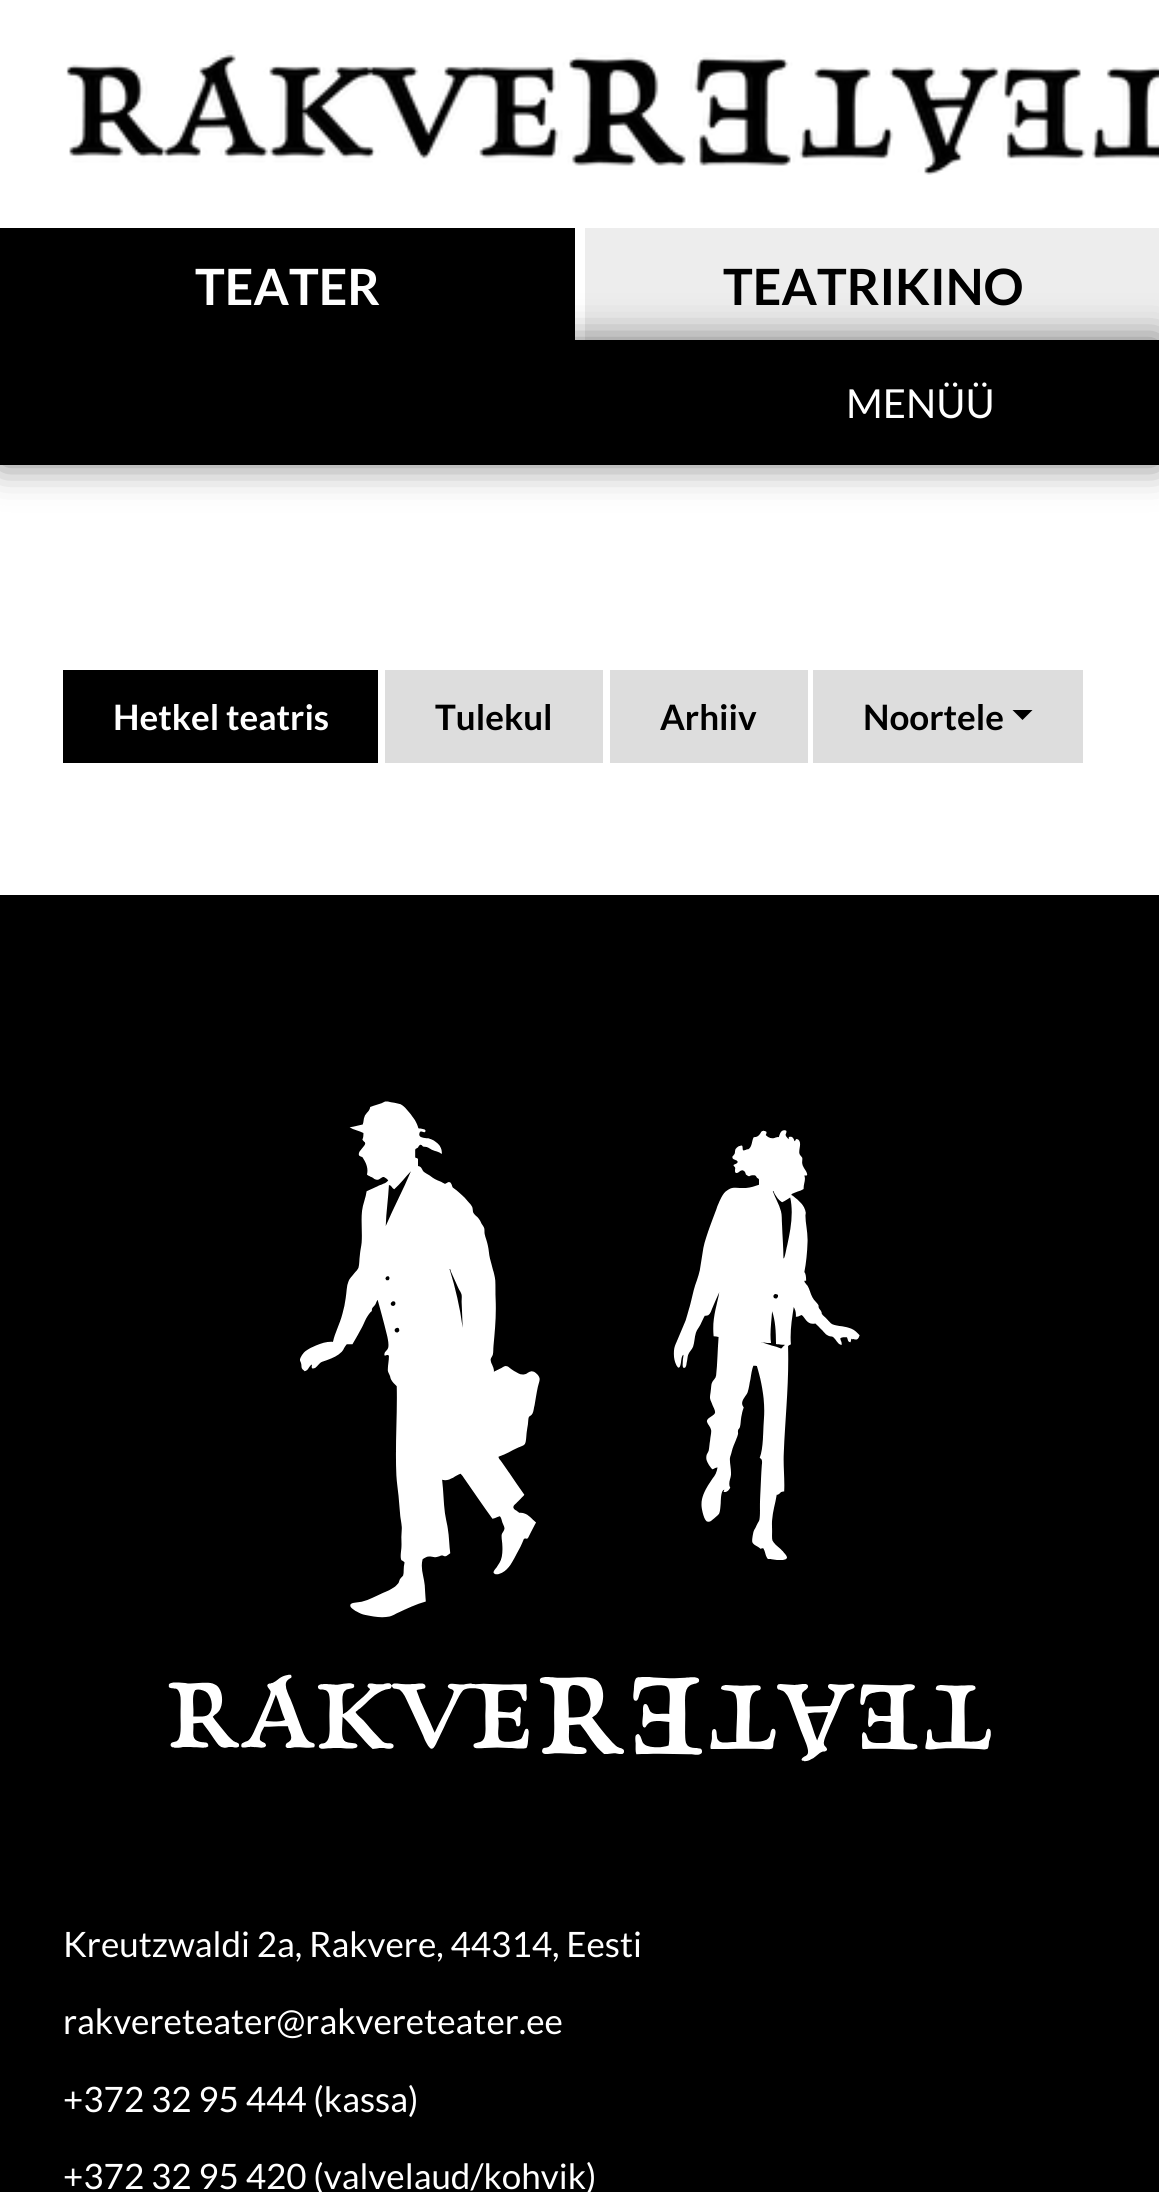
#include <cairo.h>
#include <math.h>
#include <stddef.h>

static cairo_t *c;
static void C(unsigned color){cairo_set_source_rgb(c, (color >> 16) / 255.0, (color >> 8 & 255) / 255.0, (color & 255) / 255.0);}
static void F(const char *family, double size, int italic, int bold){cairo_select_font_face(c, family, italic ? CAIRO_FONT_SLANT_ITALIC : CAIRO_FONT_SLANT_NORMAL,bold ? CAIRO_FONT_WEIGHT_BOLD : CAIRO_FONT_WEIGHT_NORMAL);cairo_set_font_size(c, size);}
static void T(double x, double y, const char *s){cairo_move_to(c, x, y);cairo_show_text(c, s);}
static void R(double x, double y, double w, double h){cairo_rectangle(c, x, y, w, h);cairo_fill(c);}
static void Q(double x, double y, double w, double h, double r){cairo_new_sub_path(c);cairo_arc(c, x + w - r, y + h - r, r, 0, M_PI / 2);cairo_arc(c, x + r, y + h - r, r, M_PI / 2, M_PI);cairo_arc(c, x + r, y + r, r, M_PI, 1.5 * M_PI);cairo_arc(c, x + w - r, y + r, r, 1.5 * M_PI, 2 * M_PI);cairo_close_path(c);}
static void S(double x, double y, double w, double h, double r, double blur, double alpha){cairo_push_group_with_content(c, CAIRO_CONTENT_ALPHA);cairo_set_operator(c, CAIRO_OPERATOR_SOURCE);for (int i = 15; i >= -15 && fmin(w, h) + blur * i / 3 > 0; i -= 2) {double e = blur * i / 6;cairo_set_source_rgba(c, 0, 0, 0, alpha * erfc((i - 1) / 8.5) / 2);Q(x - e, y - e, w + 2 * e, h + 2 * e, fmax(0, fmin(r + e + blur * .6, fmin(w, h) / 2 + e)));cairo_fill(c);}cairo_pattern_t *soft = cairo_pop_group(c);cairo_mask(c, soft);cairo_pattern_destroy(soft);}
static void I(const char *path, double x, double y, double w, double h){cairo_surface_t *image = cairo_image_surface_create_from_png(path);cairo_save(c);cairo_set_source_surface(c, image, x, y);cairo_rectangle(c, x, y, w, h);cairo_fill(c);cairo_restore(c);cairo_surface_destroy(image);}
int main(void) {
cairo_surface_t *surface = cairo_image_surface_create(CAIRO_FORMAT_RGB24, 1159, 2192);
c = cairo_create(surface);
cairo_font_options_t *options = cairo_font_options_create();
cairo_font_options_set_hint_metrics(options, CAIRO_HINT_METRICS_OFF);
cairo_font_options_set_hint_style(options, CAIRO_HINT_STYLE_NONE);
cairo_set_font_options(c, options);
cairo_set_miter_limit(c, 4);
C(0xffffff);
cairo_paint(c);
I("1.png",66,50,1093,125);
C(0x000000);
R(0,228,575,112);
F("Lato",50,0,1);
C(0xffffff);
T(195,305,"TEATER");
C(0xededed);
R(585,228,574,112);
C(0x000000);
T(723,305,"TEATRIKINO");
C(0x000000);
S(0,340,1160,125,0,19,.5);
C(0x000000);
R(0,340,1159,125);
F("Lato",40,0,0);
C(0xffffff);
T(846,418,"MENÜÜ");
C(0x000000);
R(63,670,315,93);
F("Lato",35,0,1);
C(0xffffff);
T(113,730,"Hetkel teatris");
C(0xdddddd);
R(385,670,218,93);
C(0x000000);
T(435,730,"Tulekul");
C(0xdddddd);
R(610,670,198,93);
C(0x000000);
T(660,730,"Arhiiv");
C(0xdddddd);
R(813,670,270,93);
C(0x000000);
T(863,730,"Noortele");
cairo_new_path(c);
cairo_move_to(c,1012.5,710);
cairo_line_to(c,1032.5,710);
cairo_line_to(c,1022.5,720);
cairo_close_path(c);
cairo_fill(c);
R(0,895,1159,1297);
I("2.png",168,1101,823,661);
F("Lato",35,0,0);
C(0xffffff);
T(63,1957,"Kreutzwaldi 2a, Rakvere, 44314, Eesti");
T(63,2034,"rakvereteater@rakvereteater.ee");
T(63,2112,"+372 32 95 444 (kassa)");
T(63,2189,"+372 32 95 420 (valvelaud/kohvik)");
cairo_surface_write_to_png(surface, "o.png");
cairo_font_options_destroy(options);
cairo_destroy(c);
cairo_surface_destroy(surface);
return 0;
}
